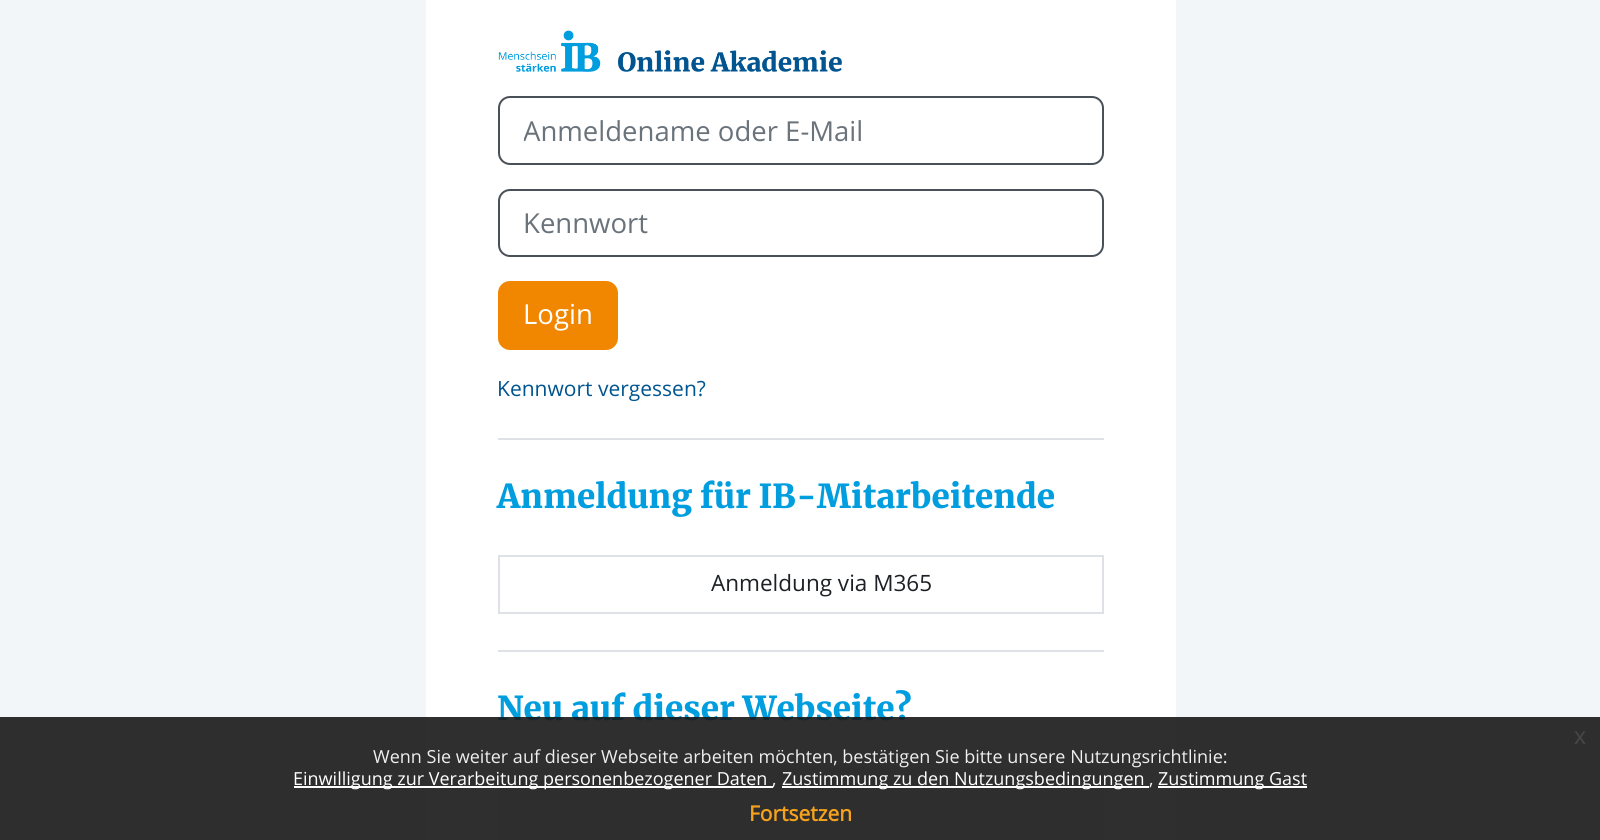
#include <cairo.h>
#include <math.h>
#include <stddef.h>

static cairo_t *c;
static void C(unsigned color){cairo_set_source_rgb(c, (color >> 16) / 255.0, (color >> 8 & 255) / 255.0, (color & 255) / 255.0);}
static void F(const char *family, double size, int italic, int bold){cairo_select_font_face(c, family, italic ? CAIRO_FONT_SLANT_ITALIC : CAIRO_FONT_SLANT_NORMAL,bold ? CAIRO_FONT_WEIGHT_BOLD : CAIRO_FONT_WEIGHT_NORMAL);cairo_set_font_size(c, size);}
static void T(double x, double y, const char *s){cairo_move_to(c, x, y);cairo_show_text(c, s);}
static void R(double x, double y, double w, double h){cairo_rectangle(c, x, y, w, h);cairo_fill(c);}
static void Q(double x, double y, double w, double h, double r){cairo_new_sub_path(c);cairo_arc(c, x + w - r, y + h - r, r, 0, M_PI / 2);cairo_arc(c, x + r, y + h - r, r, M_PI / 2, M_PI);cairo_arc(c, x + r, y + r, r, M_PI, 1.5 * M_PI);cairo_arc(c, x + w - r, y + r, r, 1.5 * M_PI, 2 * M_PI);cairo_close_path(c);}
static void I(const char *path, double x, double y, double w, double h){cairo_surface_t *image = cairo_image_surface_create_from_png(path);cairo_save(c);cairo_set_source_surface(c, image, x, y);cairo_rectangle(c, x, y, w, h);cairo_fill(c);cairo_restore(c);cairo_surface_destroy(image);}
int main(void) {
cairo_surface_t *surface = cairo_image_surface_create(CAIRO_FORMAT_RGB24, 1600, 840);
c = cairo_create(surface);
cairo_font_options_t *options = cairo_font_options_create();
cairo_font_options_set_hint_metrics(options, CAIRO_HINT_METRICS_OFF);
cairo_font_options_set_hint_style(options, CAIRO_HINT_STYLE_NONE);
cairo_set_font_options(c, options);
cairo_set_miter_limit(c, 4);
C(0xf3f6f8);
cairo_paint(c);
C(0xffffff);
R(426,0,750,840);
I("1.png",498,30,344,42);
Q(499,97,604,67,11);
C(0x495057);
cairo_stroke(c);
cairo_save(c);
cairo_rectangle(c,524,113,555,36);
cairo_clip(c);
F("Open Sans",27.5,0,0);
C(0x6a737b);
T(523,141,"Anmeldename oder E-Mail");
cairo_restore(c);
Q(499,190,604,66,11);
cairo_stroke(c);
F("Open Sans",27.5,0,0);
C(0x6a737b);
T(523,233,"Kennwort");
C(0xf18700);
Q(499,282,118,67,11);
cairo_fill_preserve(c);
cairo_stroke(c);
C(0xffffff);
T(523,324,"Login");
F("Open Sans",21,0,0);
C(0x005590);
T(497,396,"Kennwort vergessen?");
C(0xdee2e6);
R(498,438,606,2);
F("Merriweather Black",33,0,0);
C(0x009ddf);
T(497,508,"Anmeldung für IB-Mitarbeitende");
cairo_rectangle(c,499,556,604,57);
C(0xdee2e6);
cairo_stroke(c);
F("Open Sans",22.5,0,0);
C(0x1d2125);
T(711,591,"Anmeldung via M365");
C(0xdee2e6);
R(498,650,606,2);
F("Merriweather Black",33,0,0);
C(0x009ddf);
T(497,720,"Neu auf dieser Webseite?");
C(0xf3f6f8);
R(498,768,606,72);
cairo_set_source_rgba(c,0.098,0.098,0.098,0.9);
R(0,717,1600,123);
F("Liberation Sans",24,0,0);
C(0x464646);
T(1574,744,"x");
F("Open Sans",18,0,0);
C(0xefefef);
T(373,763,"Wenn Sie weiter auf dieser Webseite arbeiten möchten, bestätigen Sie bitte unsere Nutzungsrichtlinie:");
C(0xffffff);
R(294,786,479,2);
T(293,785,"Einwilligung zur Verarbeitung personenbezogener Daten");
C(0xefefef);
T(772,785,",");
C(0xffffff);
R(782,786,367,2);
T(782,785,"Zustimmung zu den Nutzungsbedingungen");
C(0xefefef);
T(1149,785,",");
C(0xffffff);
R(1158,786,149,2);
T(1158,785,"Zustimmung Gast");
F("Open Sans",21,0,1);
C(0xf6a21d);
T(749,821,"Fortsetzen");
cairo_surface_write_to_png(surface, "o.png");
cairo_font_options_destroy(options);
cairo_destroy(c);
cairo_surface_destroy(surface);
return 0;
}
